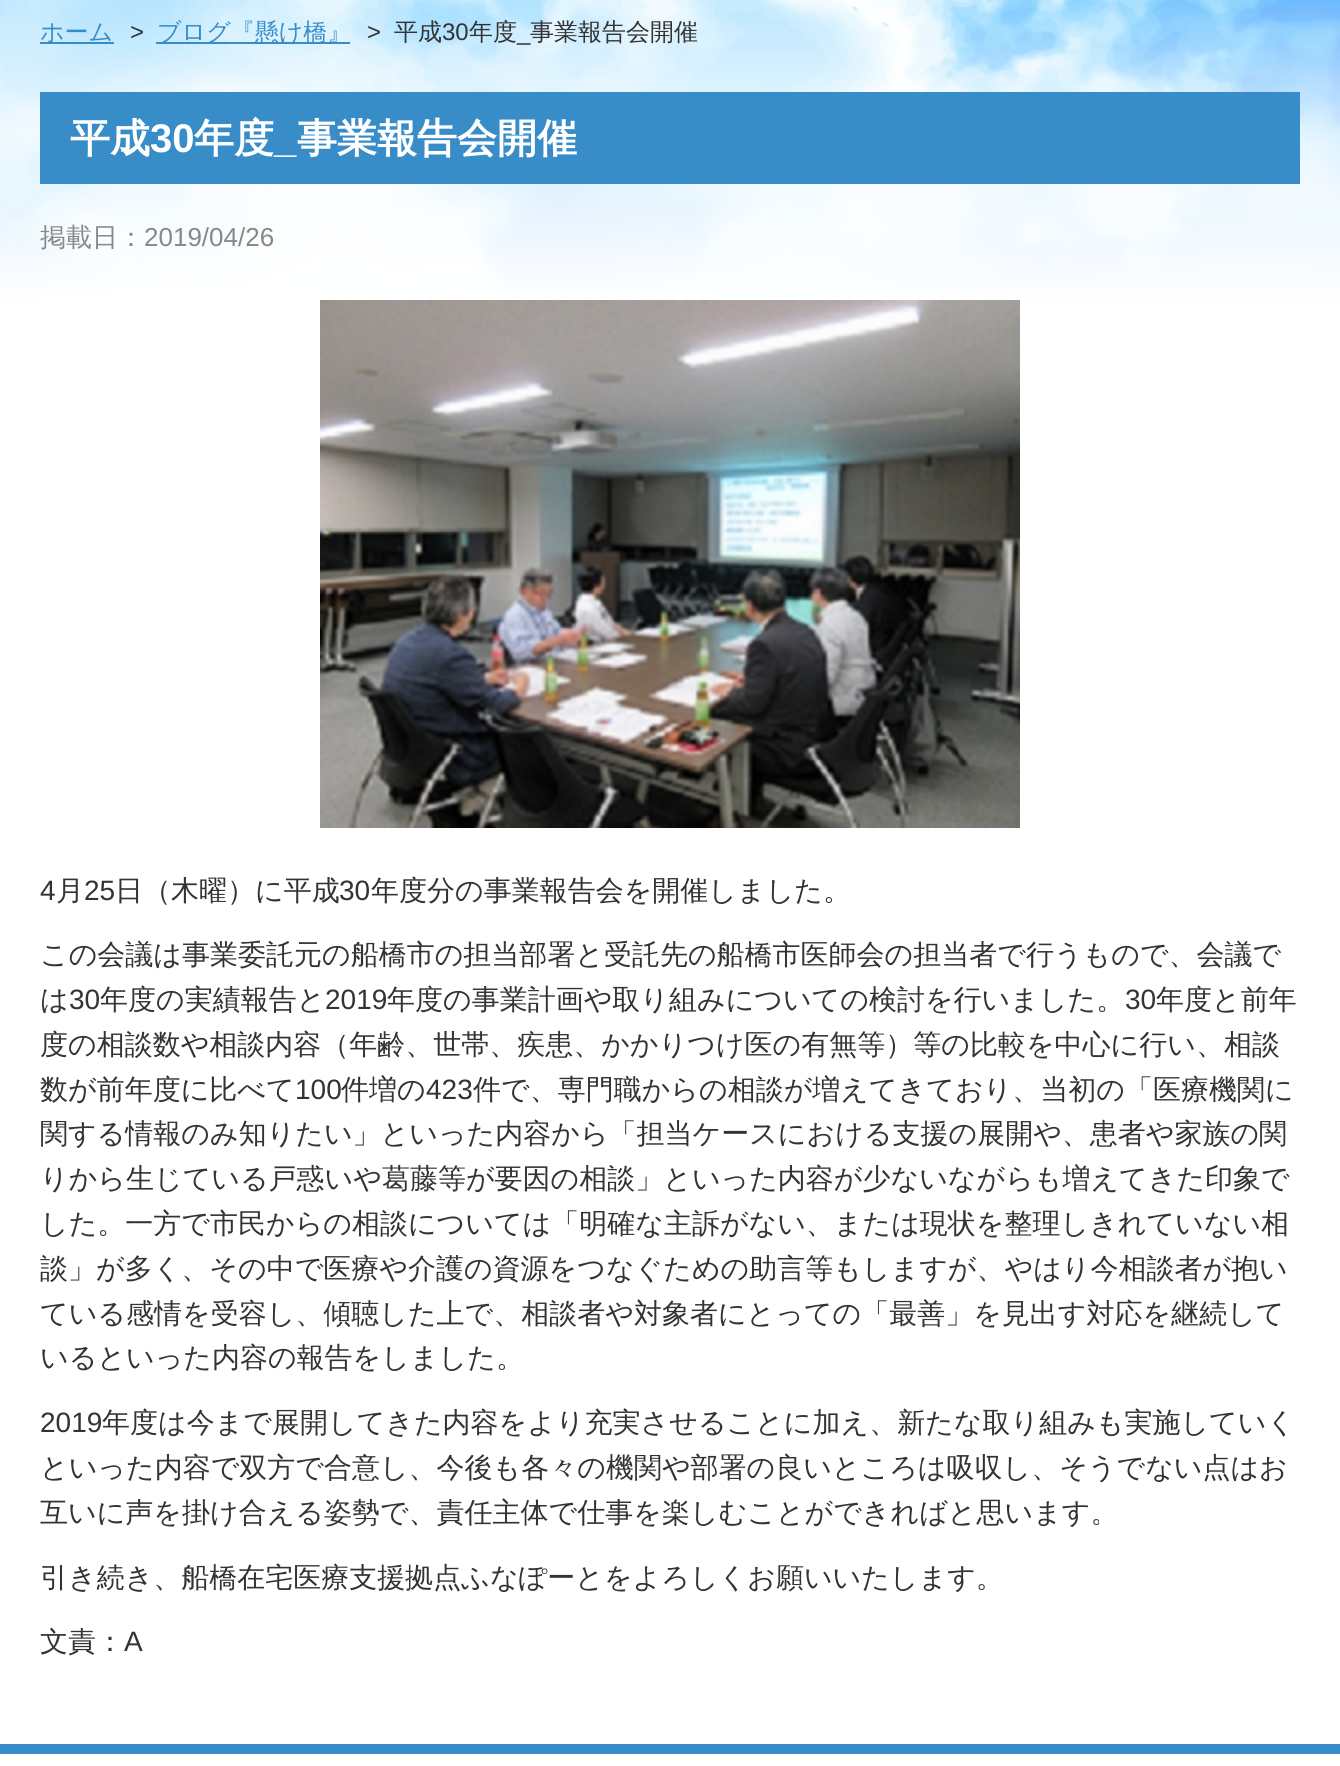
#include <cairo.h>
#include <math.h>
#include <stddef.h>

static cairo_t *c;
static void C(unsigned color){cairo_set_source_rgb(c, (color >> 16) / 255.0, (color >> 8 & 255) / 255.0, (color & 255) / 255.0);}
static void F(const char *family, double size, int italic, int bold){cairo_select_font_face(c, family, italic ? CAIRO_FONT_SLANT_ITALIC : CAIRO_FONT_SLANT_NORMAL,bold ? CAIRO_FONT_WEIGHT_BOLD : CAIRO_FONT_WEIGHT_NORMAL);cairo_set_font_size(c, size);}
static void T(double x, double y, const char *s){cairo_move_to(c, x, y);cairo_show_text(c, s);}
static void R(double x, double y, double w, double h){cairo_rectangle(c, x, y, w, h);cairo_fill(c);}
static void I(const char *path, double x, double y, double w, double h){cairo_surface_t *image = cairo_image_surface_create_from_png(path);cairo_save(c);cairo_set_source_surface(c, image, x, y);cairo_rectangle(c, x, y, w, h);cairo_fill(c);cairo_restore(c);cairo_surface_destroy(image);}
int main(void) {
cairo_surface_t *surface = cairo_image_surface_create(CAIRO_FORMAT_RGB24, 1340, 1766);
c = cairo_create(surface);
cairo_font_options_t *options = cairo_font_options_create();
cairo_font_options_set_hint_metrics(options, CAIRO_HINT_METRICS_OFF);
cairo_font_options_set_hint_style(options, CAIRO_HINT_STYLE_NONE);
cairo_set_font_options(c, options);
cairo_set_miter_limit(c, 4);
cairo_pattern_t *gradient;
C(0xffffff);
cairo_paint(c);
I("1.png",0,0,1340,302);
gradient = cairo_pattern_create_linear(670,-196,670,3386);
cairo_pattern_add_color_stop_rgba(gradient,0,1,1,1,0);
cairo_pattern_add_color_stop_rgba(gradient,.04,1,1,1,0);
cairo_pattern_add_color_stop_rgba(gradient,.09,1,1,1,.7);
cairo_pattern_add_color_stop_rgba(gradient,.14,1,1,1,1);
cairo_set_source(c,gradient);
cairo_pattern_destroy(gradient);
R(0,0,1340,302);
C(0x388dc9);
R(40,42,74,2);
F("WenQuanYi Zen Hei Medium",24,0,0);
T(40,40,"ホーム");
F("Liberation Sans",24,0,0);
C(0x333333);
T(130,40,">");
C(0x388dc9);
R(156,42,194,2);
F("WenQuanYi Zen Hei Medium",24,0,0);
T(157,40,"ブログ『懸け橋』");
F("Liberation Sans",24,0,0);
C(0x333333);
T(367,40,">");
F("WenQuanYi Zen Hei Medium",24,0,0);
T(394,40,"平成");
F("Liberation Sans",24,0,0);
T(442,40,"30");
F("WenQuanYi Zen Hei Medium",24,0,0);
T(469,40,"年度");
F("Liberation Sans",24,0,0);
T(517,40,"_");
F("WenQuanYi Zen Hei Medium",24,0,0);
T(530,40,"事業報告会開催");
C(0x388dc9);
R(40,92,1260,92);
F("WenQuanYi Zen Hei",40,0,1);
C(0xffffff);
T(70,152,"平成");
F("Liberation Sans",40,0,1);
T(150,152,"30");
F("WenQuanYi Zen Hei",40,0,1);
T(194,152,"年度");
F("Liberation Sans",40,0,1);
T(274,152,"_");
F("WenQuanYi Zen Hei",40,0,1);
T(297,152,"事業報告会開催");
F("WenQuanYi Zen Hei Medium",26,0,0);
C(0x888888);
T(40,246,"掲載日：");
F("Liberation Sans",26,0,0);
T(144,246,"2019/04/26");
I("2.png",320,300,700,528);
F("Liberation Sans",28,0,0);
C(0x333333);
T(40,900,"4");
F("WenQuanYi Zen Hei Medium",28,0,0);
T(56,900,"月");
F("Liberation Sans",28,0,0);
T(84,900,"25");
F("WenQuanYi Zen Hei Medium",28,0,0);
T(115,900,"日（木曜）に平成");
F("Liberation Sans",28,0,0);
T(339,900,"30");
F("WenQuanYi Zen Hei Medium",28,0,0);
T(371,900,"年度分の事業報告会を開催しました。");
T(40,964,"この会議は事業委託元の船橋市の担当部署と受託先の船橋市医師会の担当者で行うもので、会議で");
T(40,1009,"は");
F("Liberation Sans",28,0,0);
T(69,1009,"30");
F("WenQuanYi Zen Hei Medium",28,0,0);
T(100,1009,"年度の実績報告と");
F("Liberation Sans",28,0,0);
T(325,1009,"2019");
F("WenQuanYi Zen Hei Medium",28,0,0);
T(387,1009,"年度の事業計画や取り組みについての検討を行いました。");
F("Liberation Sans",28,0,0);
T(1125,1009,"30");
F("WenQuanYi Zen Hei Medium",28,0,0);
T(1156,1009,"年度と前年");
T(40,1054,"度の相談数や相談内容（年齢、世帯、疾患、かかりつけ医の有無等）等の比較を中心に行い、相談");
T(40,1099,"数が前年度に比べて");
F("Liberation Sans",28,0,0);
T(295,1099,"100");
F("WenQuanYi Zen Hei Medium",28,0,0);
T(341,1099,"件増の");
F("Liberation Sans",28,0,0);
T(426,1099,"423");
F("WenQuanYi Zen Hei Medium",28,0,0);
T(473,1099,"件で、専門職からの相談が増えてきており、当初の「医療機関に");
T(40,1143,"関する情報のみ知りたい」といった内容から「担当ケースにおける支援の展開や、患者や家族の関");
T(40,1188,"りから生じている戸惑いや葛藤等が要因の相談」といった内容が少ないながらも増えてきた印象で");
T(40,1233,"した。一方で市民からの相談については「明確な主訴がない、または現状を整理しきれていない相");
T(40,1278,"談」が多く、その中で医療や介護の資源をつなぐための助言等もしますが、やはり今相談者が抱い");
T(40,1323,"ている感情を受容し、傾聴した上で、相談者や対象者にとっての「最善」を見出す対応を継続して");
T(40,1367,"いるといった内容の報告をしました。");
F("Liberation Sans",28,0,0);
T(40,1432,"2019");
F("WenQuanYi Zen Hei Medium",28,0,0);
T(102,1432,"年度は今まで展開してきた内容をより充実させることに加え、新たな取り組みも実施していく");
T(40,1477,"といった内容で双方で合意し、今後も各々の機関や部署の良いところは吸収し、そうでない点はお");
T(40,1522,"互いに声を掛け合える姿勢で、責任主体で仕事を楽しむことができればと思います。");
T(40,1587,"引き続き、船橋在宅医療支援拠点ふなぽーとをよろしくお願いいたします。");
T(40,1651,"文責：");
F("Liberation Sans",28,0,0);
T(124,1651,"A");
C(0x388dc9);
R(0,1744,1340,10);
cairo_surface_write_to_png(surface, "o.png");
cairo_font_options_destroy(options);
cairo_destroy(c);
cairo_surface_destroy(surface);
return 0;
}
